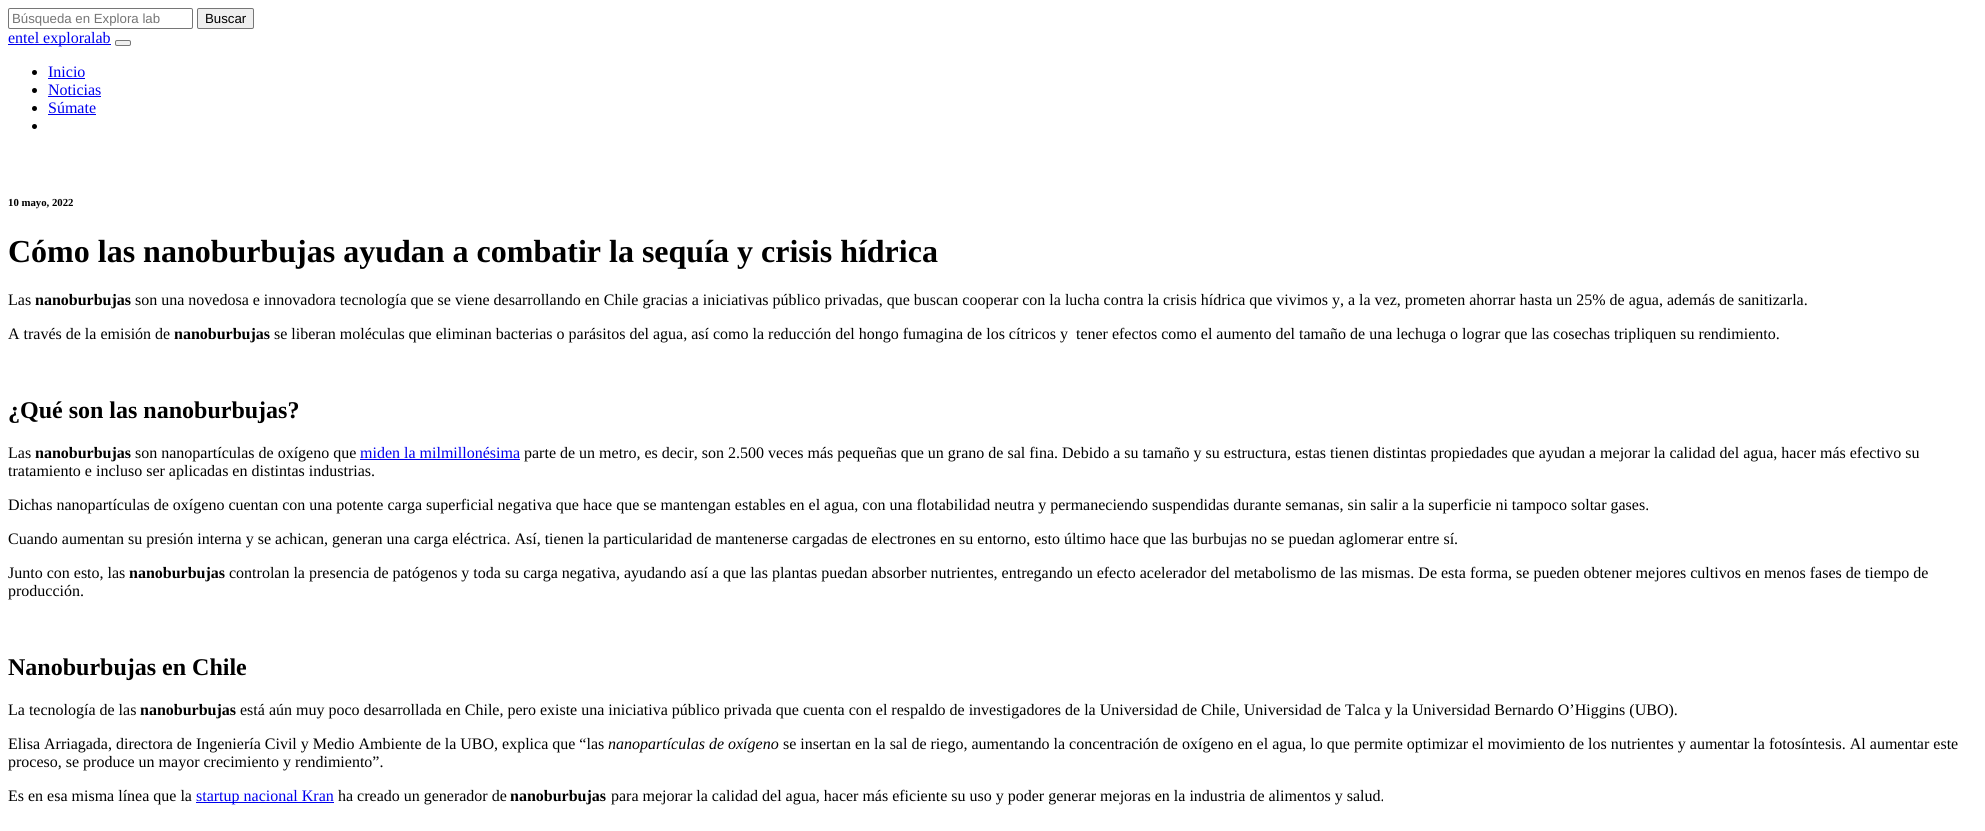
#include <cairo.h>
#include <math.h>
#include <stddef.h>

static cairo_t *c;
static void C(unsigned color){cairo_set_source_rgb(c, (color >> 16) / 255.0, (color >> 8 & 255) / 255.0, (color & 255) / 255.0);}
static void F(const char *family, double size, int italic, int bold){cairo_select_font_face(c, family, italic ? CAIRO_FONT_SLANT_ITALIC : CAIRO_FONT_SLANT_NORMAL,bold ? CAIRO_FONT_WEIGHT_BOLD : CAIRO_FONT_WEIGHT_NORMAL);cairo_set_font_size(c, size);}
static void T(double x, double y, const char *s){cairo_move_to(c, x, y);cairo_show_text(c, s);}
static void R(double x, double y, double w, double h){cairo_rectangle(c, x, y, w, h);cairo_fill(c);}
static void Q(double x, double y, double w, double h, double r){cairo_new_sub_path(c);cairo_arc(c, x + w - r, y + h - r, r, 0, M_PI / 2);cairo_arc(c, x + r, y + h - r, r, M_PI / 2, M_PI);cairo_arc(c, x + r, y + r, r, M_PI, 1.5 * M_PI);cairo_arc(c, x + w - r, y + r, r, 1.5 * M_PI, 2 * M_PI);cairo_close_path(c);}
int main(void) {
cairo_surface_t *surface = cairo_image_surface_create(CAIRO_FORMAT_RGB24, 1985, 831);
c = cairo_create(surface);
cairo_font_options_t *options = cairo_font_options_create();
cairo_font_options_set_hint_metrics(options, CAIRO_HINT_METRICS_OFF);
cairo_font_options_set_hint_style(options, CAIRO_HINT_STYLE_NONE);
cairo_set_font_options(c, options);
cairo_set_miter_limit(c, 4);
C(0xffffff);
cairo_paint(c);
Q(8.5,8.5,184,20,1.5);
C(0x767676);
cairo_set_line_width(c,1);
cairo_stroke(c);
F("Liberation Sans",13.25,0,0);
C(0x757575);
T(12,23,"Búsqueda en Explora lab");
C(0xefefef);
Q(197.5,8.5,56,20,1.5);
cairo_fill_preserve(c);
C(0x767676);
cairo_stroke(c);
C(0x000000);
T(205,23,"Buscar");
C(0x0000ee);
R(8,44,103,1);
F("Liberation Serif",16,0,0);
T(8,43,"entel exploralab");
C(0xefefef);
Q(115.5,40.5,15,5,1.5);
cairo_fill_preserve(c);
C(0x767676);
cairo_stroke(c);
C(0x000000);
cairo_arc(c,34.5,72.5,2.5,0,2 * M_PI);
cairo_fill(c);
C(0x0000ee);
T(48,77,"Inicio");
R(48,78,37,1);
C(0x000000);
cairo_new_path(c);
cairo_arc(c,34.5,90.5,2.5,0,2 * M_PI);
cairo_fill(c);
C(0x0000ee);
T(48,95,"Noticias");
R(48,96,53,1);
C(0x000000);
cairo_new_path(c);
cairo_arc(c,34.5,108.5,2.5,0,2 * M_PI);
cairo_fill(c);
C(0x0000ee);
T(48,113,"Súmate");
R(48,114,48,1);
C(0x000000);
cairo_new_path(c);
cairo_arc(c,34.5,126.5,2.5,0,2 * M_PI);
cairo_fill(c);
F("Liberation Serif",10.75,0,1);
T(8,206,"10 mayo, 2022");
F("Liberation Serif",32,0,1);
T(8,262,"Cómo las nanoburbujas ayudan a combatir la sequía y crisis hídrica");
F("Liberation Serif",16,0,0);
T(8,305,"Las");
F("Liberation Serif",16,0,1);
T(35,305,"nanoburbujas");
F("Liberation Serif",16,0,0);
T(135,305,"son una novedosa e innovadora tecnología que se viene desarrollando en Chile gracias a iniciativas público privadas, que buscan cooperar con la lucha contra la crisis hídrica que vivimos y, a la vez, prometen ahorrar hasta un 25% de agua, además de sanitizarla.");
T(8,339,"A través de la emisión de");
F("Liberation Serif",16,0,1);
T(174,339,"nanoburbujas");
F("Liberation Serif",16,0,0);
T(274,339,"se liberan moléculas que eliminan bacterias o parásitos del agua, así como la reducción del hongo fumagina de los cítricos y  tener efectos como el aumento del tamaño de una lechuga o lograr que las cosechas tripliquen su rendimiento.");
F("Liberation Serif",24,0,1);
T(8,418,"¿Qué son las nanoburbujas?");
F("Liberation Serif",16,0,0);
T(8,458,"Las");
F("Liberation Serif",16,0,1);
T(35,458,"nanoburbujas");
F("Liberation Serif",16,0,0);
T(135,458,"son nanopartículas de oxígeno que");
C(0x0000ee);
T(360,458,"miden la milmillonésima");
R(360,459,160,1);
C(0x000000);
T(524,458,"parte de un metro, es decir, son 2.500 veces más pequeñas que un grano de sal fina. Debido a su tamaño y su estructura, estas tienen distintas propiedades que ayudan a mejorar la calidad del agua, hacer más efectivo su");
T(8,476,"tratamiento e incluso ser aplicadas en distintas industrias.");
T(8,510,"Dichas nanopartículas de oxígeno cuentan con una potente carga superficial negativa que hace que se mantengan estables en el agua, con una flotabilidad neutra y permaneciendo suspendidas durante semanas, sin salir a la superficie ni tampoco soltar gases.");
T(8,544,"Cuando aumentan su presión interna y se achican, generan una carga eléctrica. Así, tienen la particularidad de mantenerse cargadas de electrones en su entorno, esto último hace que las burbujas no se puedan aglomerar entre sí.");
T(8,578,"Junto con esto, las");
F("Liberation Serif",16,0,1);
T(129,578,"nanoburbujas");
F("Liberation Serif",16,0,0);
T(229,578,"controlan la presencia de patógenos y toda su carga negativa, ayudando así a que las plantas puedan absorber nutrientes, entregando un efecto acelerador del metabolismo de las mismas. De esta forma, se pueden obtener mejores cultivos en menos fases de tiempo de");
T(8,596,"producción.");
F("Liberation Serif",24,0,1);
T(8,675,"Nanoburbujas en Chile");
F("Liberation Serif",16,0,0);
T(8,715,"La tecnología de las");
F("Liberation Serif",16,0,1);
T(140,715,"nanoburbujas");
F("Liberation Serif",16,0,0);
T(240,715,"está aún muy poco desarrollada en Chile, pero existe una iniciativa público privada que cuenta con el respaldo de investigadores de la Universidad de Chile, Universidad de Talca y la Universidad Bernardo O’Higgins (UBO).");
T(8,749,"Elisa Arriagada, directora de Ingeniería Civil y Medio Ambiente de la UBO, explica que “las");
F("Liberation Serif",16,1,0);
T(608,749,"nanopartículas de oxígeno");
F("Liberation Serif",16,0,0);
T(783,749,"se insertan en la sal de riego, aumentando la concentración de oxígeno en el agua, lo que permite optimizar el movimiento de los nutrientes y aumentar la fotosíntesis. Al aumentar este");
T(8,767,"proceso, se produce un mayor crecimiento y rendimiento”.");
T(8,801,"Es en esa misma línea que la");
C(0x0000ee);
R(196,802,138,1);
T(196,801,"startup nacional Kran");
C(0x000000);
T(338,801,"ha creado un generador de");
F("Liberation Serif",16,0,1);
T(510,801,"nanoburbujas");
F("Liberation Serif",16,0,0);
T(611,801,"para mejorar la calidad del agua, hacer más eficiente su uso y poder generar mejoras en la industria de alimentos y salud.");
cairo_surface_write_to_png(surface, "o.png");
cairo_font_options_destroy(options);
cairo_destroy(c);
cairo_surface_destroy(surface);
return 0;
}
